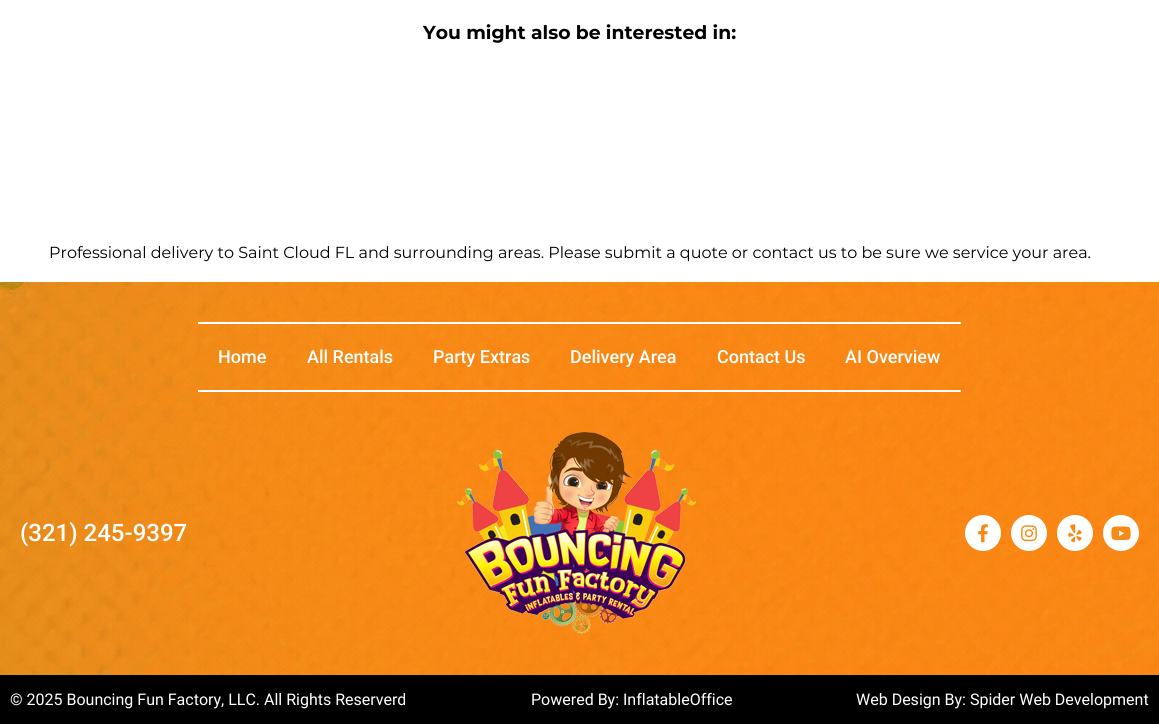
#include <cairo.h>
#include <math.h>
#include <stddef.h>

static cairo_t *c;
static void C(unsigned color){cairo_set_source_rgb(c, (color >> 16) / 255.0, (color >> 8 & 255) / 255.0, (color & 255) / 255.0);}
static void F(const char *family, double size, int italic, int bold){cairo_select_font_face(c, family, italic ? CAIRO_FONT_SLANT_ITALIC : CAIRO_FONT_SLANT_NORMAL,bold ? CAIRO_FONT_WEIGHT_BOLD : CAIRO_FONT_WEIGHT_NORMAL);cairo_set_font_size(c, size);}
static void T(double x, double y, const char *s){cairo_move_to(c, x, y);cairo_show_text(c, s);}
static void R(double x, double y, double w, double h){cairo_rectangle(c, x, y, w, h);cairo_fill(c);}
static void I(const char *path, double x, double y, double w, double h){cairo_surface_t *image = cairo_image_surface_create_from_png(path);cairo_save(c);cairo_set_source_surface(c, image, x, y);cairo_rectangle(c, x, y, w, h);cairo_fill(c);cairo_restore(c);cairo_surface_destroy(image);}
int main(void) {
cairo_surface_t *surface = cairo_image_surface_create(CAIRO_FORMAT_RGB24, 1159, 724);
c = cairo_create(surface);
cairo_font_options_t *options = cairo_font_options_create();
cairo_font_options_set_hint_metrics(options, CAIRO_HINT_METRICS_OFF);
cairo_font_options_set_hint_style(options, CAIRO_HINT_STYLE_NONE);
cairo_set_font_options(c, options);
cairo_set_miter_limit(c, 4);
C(0xffffff);
cairo_paint(c);
F("Montserrat",18.75,0,1);
C(0x000000);
T(423,39,"You might also be interested in:");
F("Montserrat",16,0,0);
T(49,258,"Professional delivery to Saint Cloud FL and surrounding areas. Please submit a quote or contact us to be sure we service your area.");
I("1.png",0,282,1159,393);
C(0xffffff);
R(198,322,763,2);
R(198,390,763,2);
F("Roboto Medium",18,0,0);
T(218,363,"Home");
T(307,363,"All Rentals");
T(433,363,"Party Extras");
T(570,363,"Delivery Area");
T(717,363,"Contact Us");
T(845,363,"AI Overview");
F("Roboto Medium",24,0,0);
T(20,541,"(321) 245-9397");
I("2.png",457,432,239,202);
cairo_arc(c,983,533,18,0,2 * M_PI);
cairo_fill(c);
I("3.png",978,524,10,19);
cairo_arc(c,1029,533,18,0,2 * M_PI);
cairo_fill(c);
I("4.png",1021,525,16,17);
cairo_arc(c,1075,533,18,0,2 * M_PI);
cairo_fill(c);
I("5.png",1068,524,14,19);
cairo_arc(c,1121,533,18,0,2 * M_PI);
cairo_fill(c);
I("6.png",1111,526,20,14);
C(0x000000);
R(0,675,1159,49);
F("Roboto",16,0,0);
C(0xffffff);
T(10,705,"© 2025 Bouncing Fun Factory, LLC. All Rights Reserverd");
T(531,705,"Powered By: InflatableOffice");
T(856,705,"Web Design By: Spider Web Development");
cairo_surface_write_to_png(surface, "o.png");
cairo_font_options_destroy(options);
cairo_destroy(c);
cairo_surface_destroy(surface);
return 0;
}
